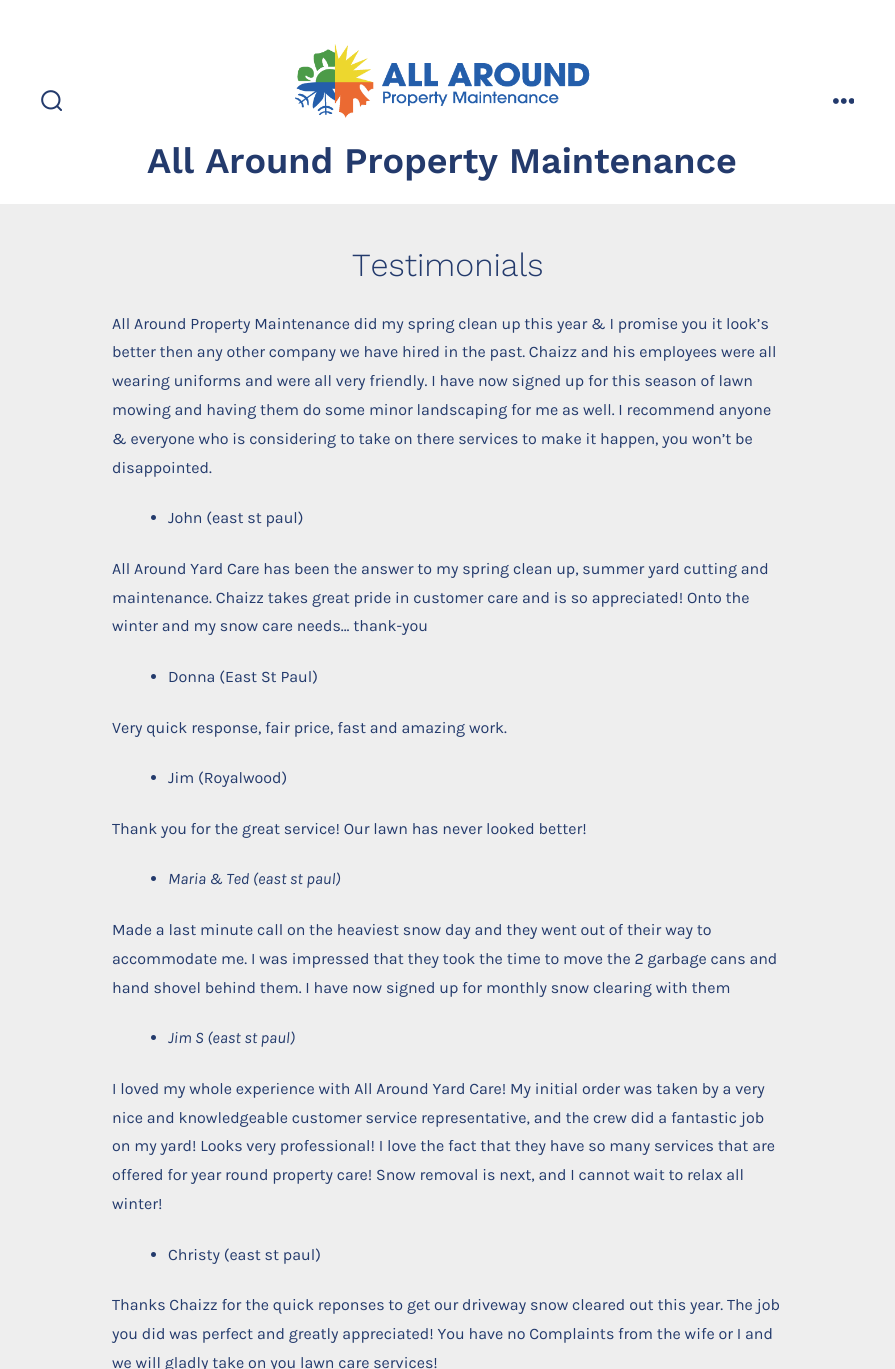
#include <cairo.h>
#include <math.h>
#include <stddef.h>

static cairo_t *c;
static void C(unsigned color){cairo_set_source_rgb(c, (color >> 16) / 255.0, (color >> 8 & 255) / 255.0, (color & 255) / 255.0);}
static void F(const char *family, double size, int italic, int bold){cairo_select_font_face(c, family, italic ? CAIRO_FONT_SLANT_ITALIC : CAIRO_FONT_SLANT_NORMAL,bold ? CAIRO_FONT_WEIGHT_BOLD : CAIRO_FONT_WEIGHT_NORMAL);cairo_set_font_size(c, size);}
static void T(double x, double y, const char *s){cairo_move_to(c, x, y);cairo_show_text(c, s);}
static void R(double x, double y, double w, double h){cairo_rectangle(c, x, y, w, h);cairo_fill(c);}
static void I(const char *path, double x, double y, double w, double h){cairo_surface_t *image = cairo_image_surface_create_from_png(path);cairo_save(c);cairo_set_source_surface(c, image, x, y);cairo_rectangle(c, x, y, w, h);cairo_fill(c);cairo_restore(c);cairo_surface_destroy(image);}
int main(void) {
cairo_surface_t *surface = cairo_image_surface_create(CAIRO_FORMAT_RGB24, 895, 1369);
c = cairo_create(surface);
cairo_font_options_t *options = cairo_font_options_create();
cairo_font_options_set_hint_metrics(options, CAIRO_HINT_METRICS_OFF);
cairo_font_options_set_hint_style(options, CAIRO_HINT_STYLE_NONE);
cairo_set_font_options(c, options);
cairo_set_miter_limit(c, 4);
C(0xeeeeee);
cairo_paint(c);
C(0xffffff);
R(0,0,895,204);
I("1.png",41,90,21,21);
I("2.png",833,98,21,6);
I("3.png",295,44,295,74);
F("Work Sans SemiBold",36,0,0);
C(0x233a6c);
T(147,173,"All Around Property Maintenance");
F("Work Sans Light",32.25,0,0);
T(352,276,"Testimonials");
F("Karla",16,0,0);
T(112,329,"All Around Property Maintenance did my spring clean up this year & I promise you it look’s");
T(112,357,"better then any other company we have hired in the past. Chaizz and his employees were all");
T(112,386,"wearing uniforms and were all very friendly. I have now signed up for this season of lawn");
T(112,415,"mowing and having them do some minor landscaping for me as well. I recommend anyone");
T(112,444,"& everyone who is considering to take on there services to make it happen, you won’t be");
T(112,473,"disappointed.");
cairo_new_path(c);
cairo_arc(c,153.5,517.5,2.5,0,2 * M_PI);
cairo_fill(c);
T(168,523,"John (east st paul)");
T(112,574,"All Around Yard Care has been the answer to my spring clean up, summer yard cutting and");
T(112,603,"maintenance. Chaizz takes great pride in customer care and is so appreciated! Onto the");
T(112,631,"winter and my snow care needs… thank-you");
cairo_new_path(c);
cairo_arc(c,153.5,676.5,2.5,0,2 * M_PI);
cairo_fill(c);
T(168,682,"Donna (East St Paul)");
T(112,733,"Very quick response, fair price, fast and amazing work.");
cairo_new_path(c);
cairo_arc(c,153.5,777.5,2.5,0,2 * M_PI);
cairo_fill(c);
T(168,783,"Jim (Royalwood)");
T(112,834,"Thank you for the great service! Our lawn has never looked better!");
cairo_new_path(c);
cairo_arc(c,153.5,878.5,2.5,0,2 * M_PI);
cairo_fill(c);
F("Karla",16,1,0);
T(168,884,"Maria & Ted (east st paul)");
F("Karla",16,0,0);
T(112,935,"Made a last minute call on the heaviest snow day and they went out of their way to");
T(112,964,"accommodate me. I was impressed that they took the time to move the 2 garbage cans and");
T(112,993,"hand shovel behind them. I have now signed up for monthly snow clearing with them");
cairo_new_path(c);
cairo_arc(c,153.5,1037.5,2.5,0,2 * M_PI);
cairo_fill(c);
F("Karla",16,1,0);
T(168,1043,"Jim S (east st paul)");
F("Karla",16,0,0);
T(112,1094,"I loved my whole experience with All Around Yard Care! My initial order was taken by a very");
T(112,1123,"nice and knowledgeable customer service representative, and the crew did a fantastic job");
T(112,1151,"on my yard! Looks very professional! I love the fact that they have so many services that are");
T(112,1180,"offered for year round property care! Snow removal is next, and I cannot wait to relax all");
T(112,1209,"winter!");
cairo_new_path(c);
cairo_arc(c,153.5,1254.5,2.5,0,2 * M_PI);
cairo_fill(c);
T(168,1260,"Christy (east st paul)");
T(112,1310,"Thanks Chaizz for the quick reponses to get our driveway snow cleared out this year. The job");
T(112,1339,"you did was perfect and greatly appreciated! You have no Complaints from the wife or I and");
T(112,1368,"we will gladly take on you lawn care services!");
cairo_surface_write_to_png(surface, "o.png");
cairo_font_options_destroy(options);
cairo_destroy(c);
cairo_surface_destroy(surface);
return 0;
}
